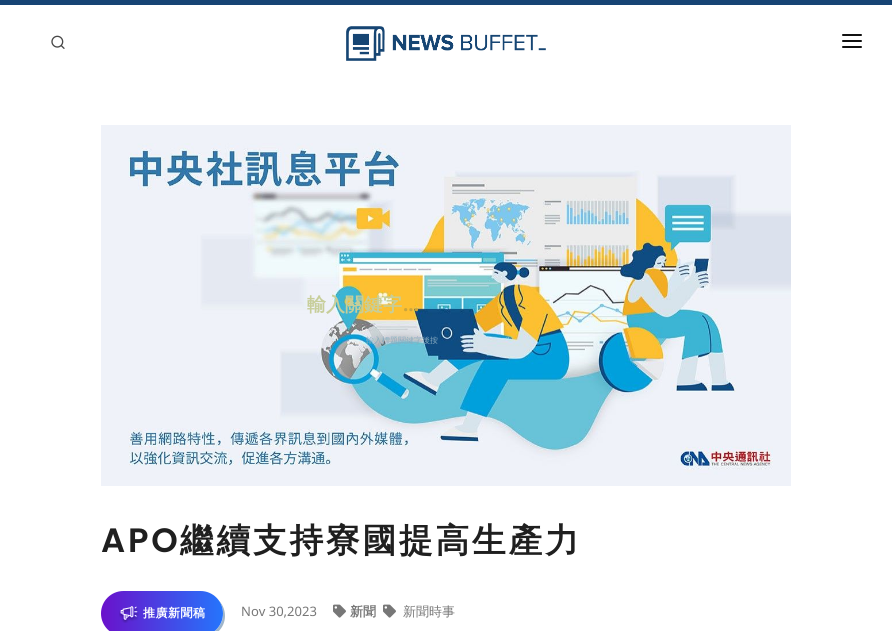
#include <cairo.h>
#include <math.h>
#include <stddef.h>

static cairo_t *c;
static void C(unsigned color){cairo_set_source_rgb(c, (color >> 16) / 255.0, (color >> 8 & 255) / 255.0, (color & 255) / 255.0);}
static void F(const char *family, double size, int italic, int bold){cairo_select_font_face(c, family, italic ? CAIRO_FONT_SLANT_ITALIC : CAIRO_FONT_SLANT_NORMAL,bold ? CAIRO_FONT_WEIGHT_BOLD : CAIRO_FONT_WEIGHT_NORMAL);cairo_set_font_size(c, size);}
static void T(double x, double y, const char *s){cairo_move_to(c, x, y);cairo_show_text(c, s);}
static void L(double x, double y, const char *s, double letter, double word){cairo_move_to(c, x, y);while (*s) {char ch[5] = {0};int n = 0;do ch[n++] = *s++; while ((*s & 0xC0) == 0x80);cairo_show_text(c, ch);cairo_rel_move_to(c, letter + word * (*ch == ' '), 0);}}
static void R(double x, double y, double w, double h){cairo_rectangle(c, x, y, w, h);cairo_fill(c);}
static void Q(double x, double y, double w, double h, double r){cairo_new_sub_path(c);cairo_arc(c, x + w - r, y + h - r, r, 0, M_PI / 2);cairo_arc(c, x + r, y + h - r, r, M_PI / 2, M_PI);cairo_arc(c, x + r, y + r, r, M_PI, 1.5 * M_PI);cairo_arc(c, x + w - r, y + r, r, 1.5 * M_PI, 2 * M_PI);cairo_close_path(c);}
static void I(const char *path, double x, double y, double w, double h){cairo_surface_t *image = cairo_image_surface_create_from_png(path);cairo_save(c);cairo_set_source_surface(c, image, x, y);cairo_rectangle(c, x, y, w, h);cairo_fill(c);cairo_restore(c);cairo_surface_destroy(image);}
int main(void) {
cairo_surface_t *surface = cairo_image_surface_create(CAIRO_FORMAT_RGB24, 892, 631);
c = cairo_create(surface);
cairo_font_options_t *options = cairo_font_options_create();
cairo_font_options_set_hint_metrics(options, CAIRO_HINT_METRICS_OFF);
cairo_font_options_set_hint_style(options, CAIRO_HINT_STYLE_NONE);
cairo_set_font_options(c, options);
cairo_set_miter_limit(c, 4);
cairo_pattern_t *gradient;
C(0xffffff);
cairo_paint(c);
C(0x164474);
R(0,0,892,5);
I("1.png",51,35,14,14);
I("2.png",346,26,200,35);
C(0x111111);
Q(842,40,20,2,1);
cairo_fill(c);
Q(842,34,20,2,1);
cairo_fill(c);
Q(842,46,20,2,1);
cairo_fill(c);
I("3.png",101,125,690,361);
F("WenQuanYi Zen Hei",19,0,1);
C(0xc7ce9a);
T(307,311,"輸入關鍵字");
F("Noto Sans",19,0,1);
C(0xcca63c);
T(403,311,"...");
F("WenQuanYi Zen Hei Medium",8,0,0);
C(0x88abbf);
T(366,343,"輸入標題關鍵字後按");
F("Noto Sans",8,0,0);
C(0xb5d9e9);
T(506,343,"\"");
F("WenQuanYi Zen Hei Medium",8,0,0);
C(0xd1dfe9);
T(465,343,"，");
F("Poppins SemiBold",33.75,0,0);
C(0x1f1f1f);
L(101,552,"APO",2.75,0);
F("WenQuanYi Zen Hei",33.75,0,1);
L(180,552,"繼續支持寮國提高生產力",2.75,0);
C(0x9fb5c9);
cairo_new_path(c);
cairo_move_to(c,109,630);
cairo_curve_to(c,113,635,119,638,126,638);
cairo_line_to(c,202,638);
cairo_curve_to(c,215,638,225,628,225,616);
cairo_curve_to(c,225,609,222,603,217,599);
cairo_curve_to(c,221,603,223,608,223,614);
cairo_curve_to(c,223,626,213,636,200,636);
cairo_line_to(c,124,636);
cairo_curve_to(c,118,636,113,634,109,630);
cairo_close_path(c);
cairo_fill(c);
gradient = cairo_pattern_create_linear(101,614,223,614);
cairo_pattern_add_color_stop_rgba(gradient,0,0.416,0.067,0.796,1);
cairo_pattern_add_color_stop_rgba(gradient,1,0.145,0.459,0.988,1);
cairo_set_source(c,gradient);
cairo_pattern_destroy(gradient);
Q(101,591,122,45,22.5);
cairo_fill(c);
I("4.png",119,606,20,17);
F("WenQuanYi Zen Hei",12,0,1);
C(0xffffff);
L(143,617,"推廣新聞稿",.5,0);
F("Noto Sans",13,0,0);
C(0x777777);
T(241,616,"Nov 30,2023");
I("5.png",333,604,13,14);
F("WenQuanYi Zen Hei",13,0,1);
T(350,616,"新聞");
I("5.png",383,604,13,14);
F("WenQuanYi Zen Hei Medium",13,0,0);
T(403,616,"新聞時事");
cairo_surface_write_to_png(surface, "o.png");
cairo_font_options_destroy(options);
cairo_destroy(c);
cairo_surface_destroy(surface);
return 0;
}
